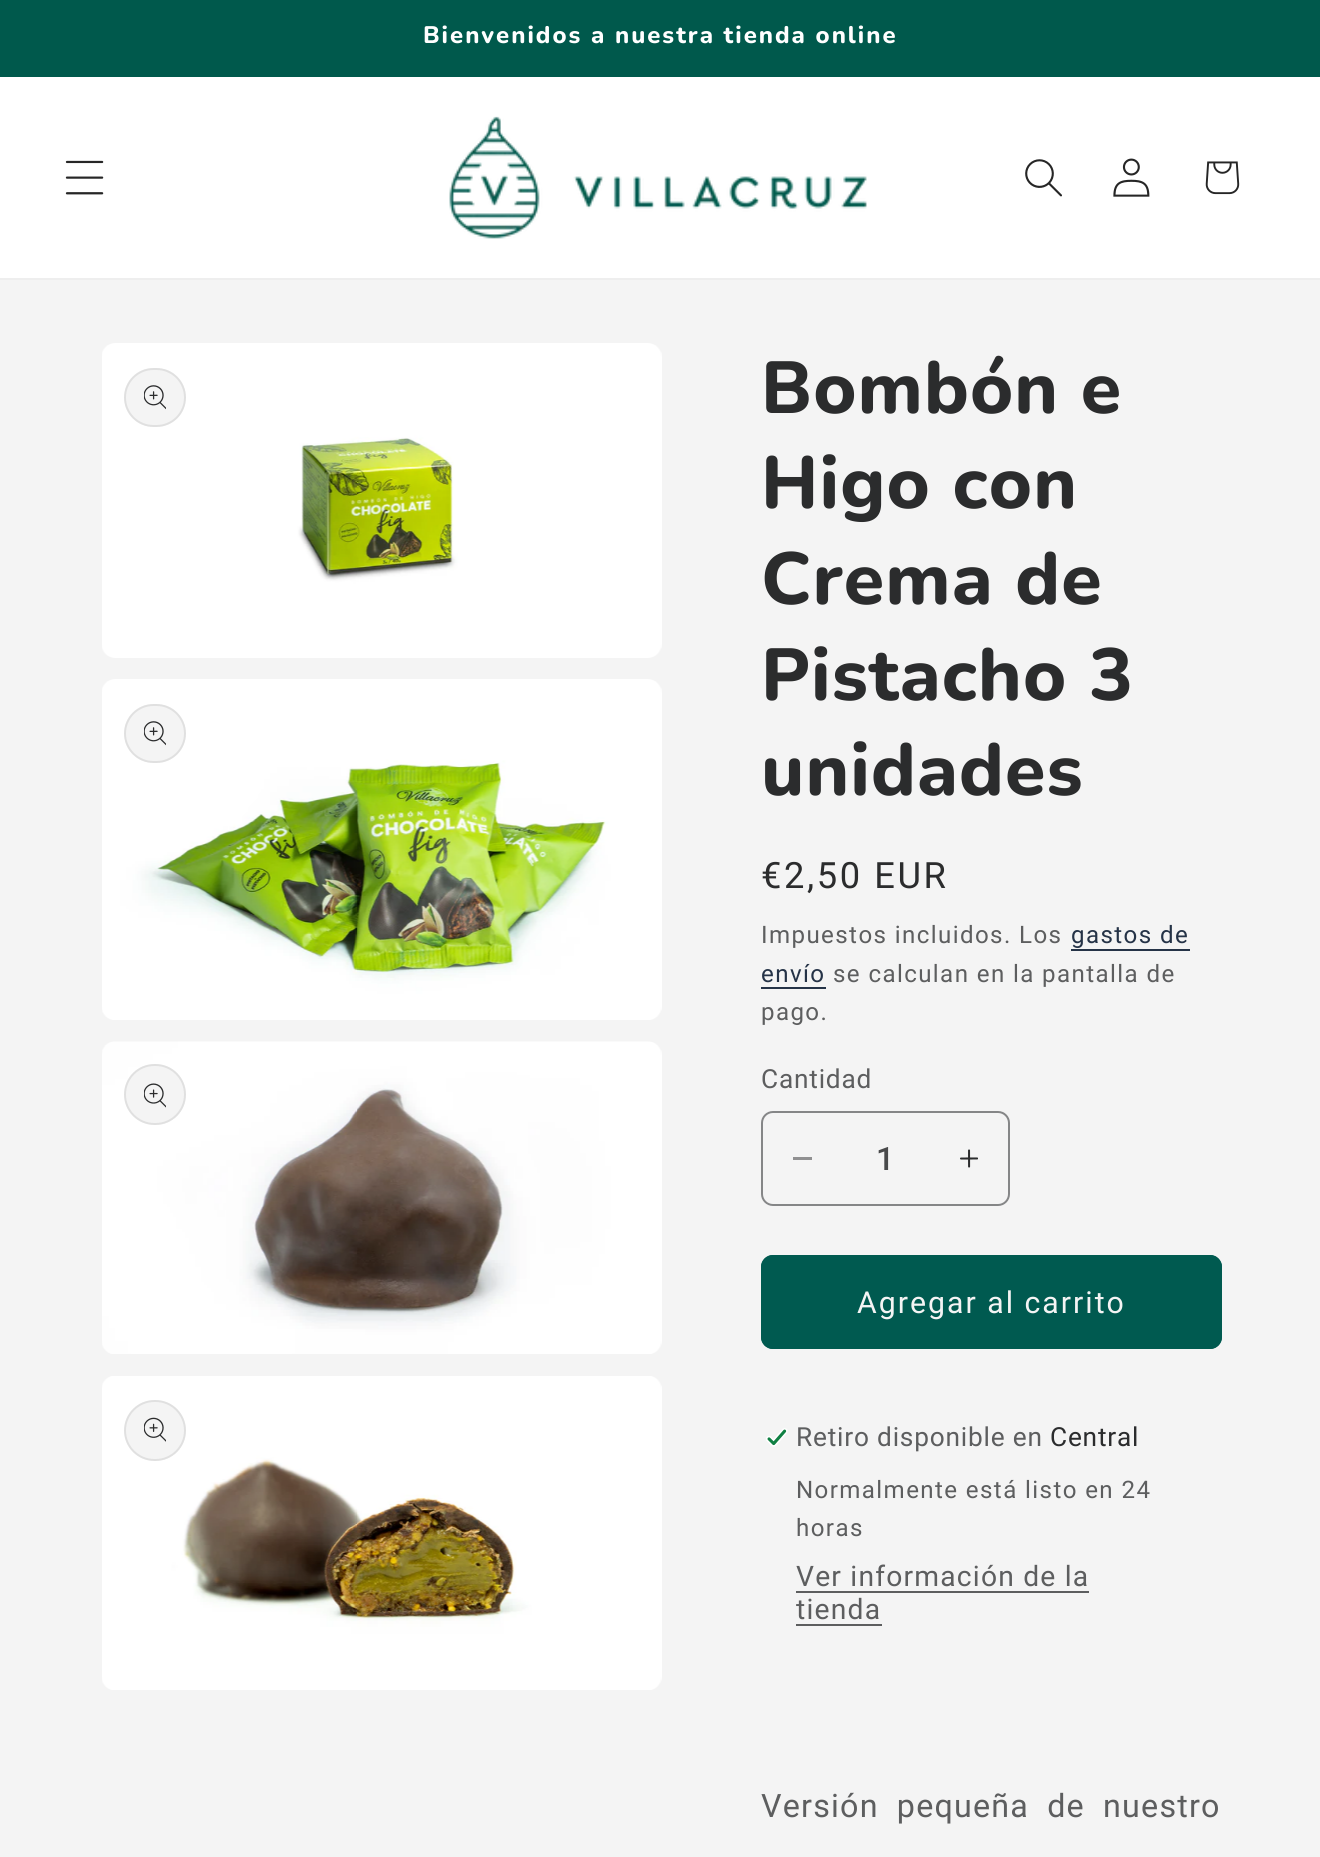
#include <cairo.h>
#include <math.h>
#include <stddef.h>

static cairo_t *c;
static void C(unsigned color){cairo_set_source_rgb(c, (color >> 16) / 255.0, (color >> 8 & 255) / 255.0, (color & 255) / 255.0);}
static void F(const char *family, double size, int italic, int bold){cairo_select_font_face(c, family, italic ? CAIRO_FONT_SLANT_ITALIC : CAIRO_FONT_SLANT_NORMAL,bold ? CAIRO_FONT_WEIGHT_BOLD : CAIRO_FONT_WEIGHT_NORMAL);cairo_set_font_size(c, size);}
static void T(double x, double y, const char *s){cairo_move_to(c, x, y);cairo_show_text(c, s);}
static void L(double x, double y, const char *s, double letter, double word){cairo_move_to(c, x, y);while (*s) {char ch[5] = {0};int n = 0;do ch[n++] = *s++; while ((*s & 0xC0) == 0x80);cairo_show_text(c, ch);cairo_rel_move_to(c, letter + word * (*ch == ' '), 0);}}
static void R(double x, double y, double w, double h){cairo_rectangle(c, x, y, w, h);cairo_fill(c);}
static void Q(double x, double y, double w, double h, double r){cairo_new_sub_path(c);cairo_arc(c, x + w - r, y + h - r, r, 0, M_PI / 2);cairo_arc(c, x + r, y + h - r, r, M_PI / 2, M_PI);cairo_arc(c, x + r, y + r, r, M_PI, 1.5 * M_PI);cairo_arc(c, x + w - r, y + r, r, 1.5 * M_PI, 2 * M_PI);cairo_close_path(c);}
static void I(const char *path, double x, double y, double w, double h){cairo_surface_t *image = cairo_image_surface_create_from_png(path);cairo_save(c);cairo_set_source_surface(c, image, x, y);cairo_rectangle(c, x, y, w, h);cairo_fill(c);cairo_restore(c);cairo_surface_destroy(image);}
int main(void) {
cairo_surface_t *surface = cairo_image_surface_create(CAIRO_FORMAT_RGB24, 1320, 1857);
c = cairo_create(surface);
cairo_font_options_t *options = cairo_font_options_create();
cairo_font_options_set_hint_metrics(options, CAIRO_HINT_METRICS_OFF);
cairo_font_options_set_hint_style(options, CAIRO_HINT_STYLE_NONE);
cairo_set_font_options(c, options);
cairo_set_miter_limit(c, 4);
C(0xf4f4f4);
cairo_paint(c);
C(0x00594c);
R(0,0,1320,77);
F("Nunito ExtraBold",23.9,0,0);
C(0xffffff);
L(423,43,"Bienvenidos a nuestra tienda online",2,0);
R(0,77,1320,201);
C(0xeeeeee);
R(0,278,1320,2);
I("1.png",65,160,39,35);
I("2.png",449,116,418,123);
I("3.png",1025,159,37,38);
I("4.png",1113,158,37,39);
I("5.png",1205,161,35,34);
I("6.png",102,343,560,315);
C(0xf4f4f4);
Q(124,368,62,59,29.5);
cairo_fill(c);
Q(125,369,60,57,28.5);
cairo_set_source_rgba(c,0.169,0.173,0.176,0.1);
cairo_stroke(c);
I("7.png",144,385,22,25);
I("8.png",102,679,560,341);
C(0xf4f4f4);
Q(124,704,62,59,29.5);
cairo_fill(c);
Q(125,705,60,57,28.5);
cairo_set_source_rgba(c,0.169,0.173,0.176,0.1);
cairo_stroke(c);
I("7.png",144,721,22,25);
I("9.png",102,1041,560,313);
C(0xf4f4f4);
Q(124,1064,62,61,30.5);
cairo_fill(c);
Q(125,1065,60,59,29.5);
cairo_set_source_rgba(c,0.169,0.173,0.176,0.1);
cairo_stroke(c);
I("10.png",144,1083,22,25);
I("11.png",102,1376,560,314);
C(0xf4f4f4);
Q(124,1400,62,61,30.5);
cairo_fill(c);
Q(125,1401,60,59,29.5);
cairo_set_source_rgba(c,0.169,0.173,0.176,0.1);
cairo_stroke(c);
I("12.png",144,1417,22,25);
F("Nunito ExtraBold",73.5,0,0);
C(0x2b2c2d);
L(761,413,"Bombón e",1.1,0);
L(761,508,"Higo con",1.1,0);
L(761,604,"Crema de",1.1,0);
L(761,700,"Pistacho 3",1.1,0);
L(761,795,"unidades",1.1,0);
F("Roboto",36.25,0,0);
L(761,888,"€2,50 EUR",2.6,0);
F("Roboto",24.1,0,0);
C(0x5d5e5f);
L(761,943,"Impuestos incluidos. Los",1.4,0);
C(0x253347);
L(1071,943,"gastos de",1.4,0);
R(1071,949,119,2);
L(761,982,"envío",1.4,0);
R(761,987,65,2);
C(0x5d5e5f);
L(833,982,"se calculan en la pantalla de",1.4,0);
L(761,1020,"pago.",1.4,0);
F("Roboto",26.25,0,0);
L(761,1088,"Cantidad",.8,0);
C(0x909091);
R(793,1157,19,3);
I("13.png",960,1149,18,19);
Q(762,1112,247,93,11);
C(0x858687);
cairo_stroke(c);
F("Roboto Medium",32.25,0,0);
C(0x494a4b);
T(876,1170,"1");
C(0x005a50);
Q(761,1255,461,94,12);
cairo_fill(c);
Q(762,1256,459,92,11);
cairo_stroke(c);
F("Roboto",30.25,0,0);
C(0xf4f4f4);
L(857,1313,"Agregar al carrito",2,0);
I("14.png",766,1428,22,19);
F("Roboto",26.25,0,0);
C(0x5d5e5f);
L(796,1446,"Retiro disponible en",.8,0);
C(0x2b2c2d);
L(1050,1446,"Central",.8,0);
F("Roboto",24.1,0,0);
C(0x5d5e5f);
L(796,1498,"Normalmente está listo en 24",1.4,0);
L(796,1536,"horas",1.4,0);
F("Roboto",28.25,0,0);
L(796,1586,"Ver información de la",1.2,0);
R(796,1591,293,2);
L(796,1619,"tienda",1.2,0);
R(796,1624,86,2);
F("Roboto",32.25,0,0);
L(761,1817,"Versión pequeña de nuestro",1.2,9);
cairo_surface_write_to_png(surface, "o.png");
cairo_font_options_destroy(options);
cairo_destroy(c);
cairo_surface_destroy(surface);
return 0;
}
